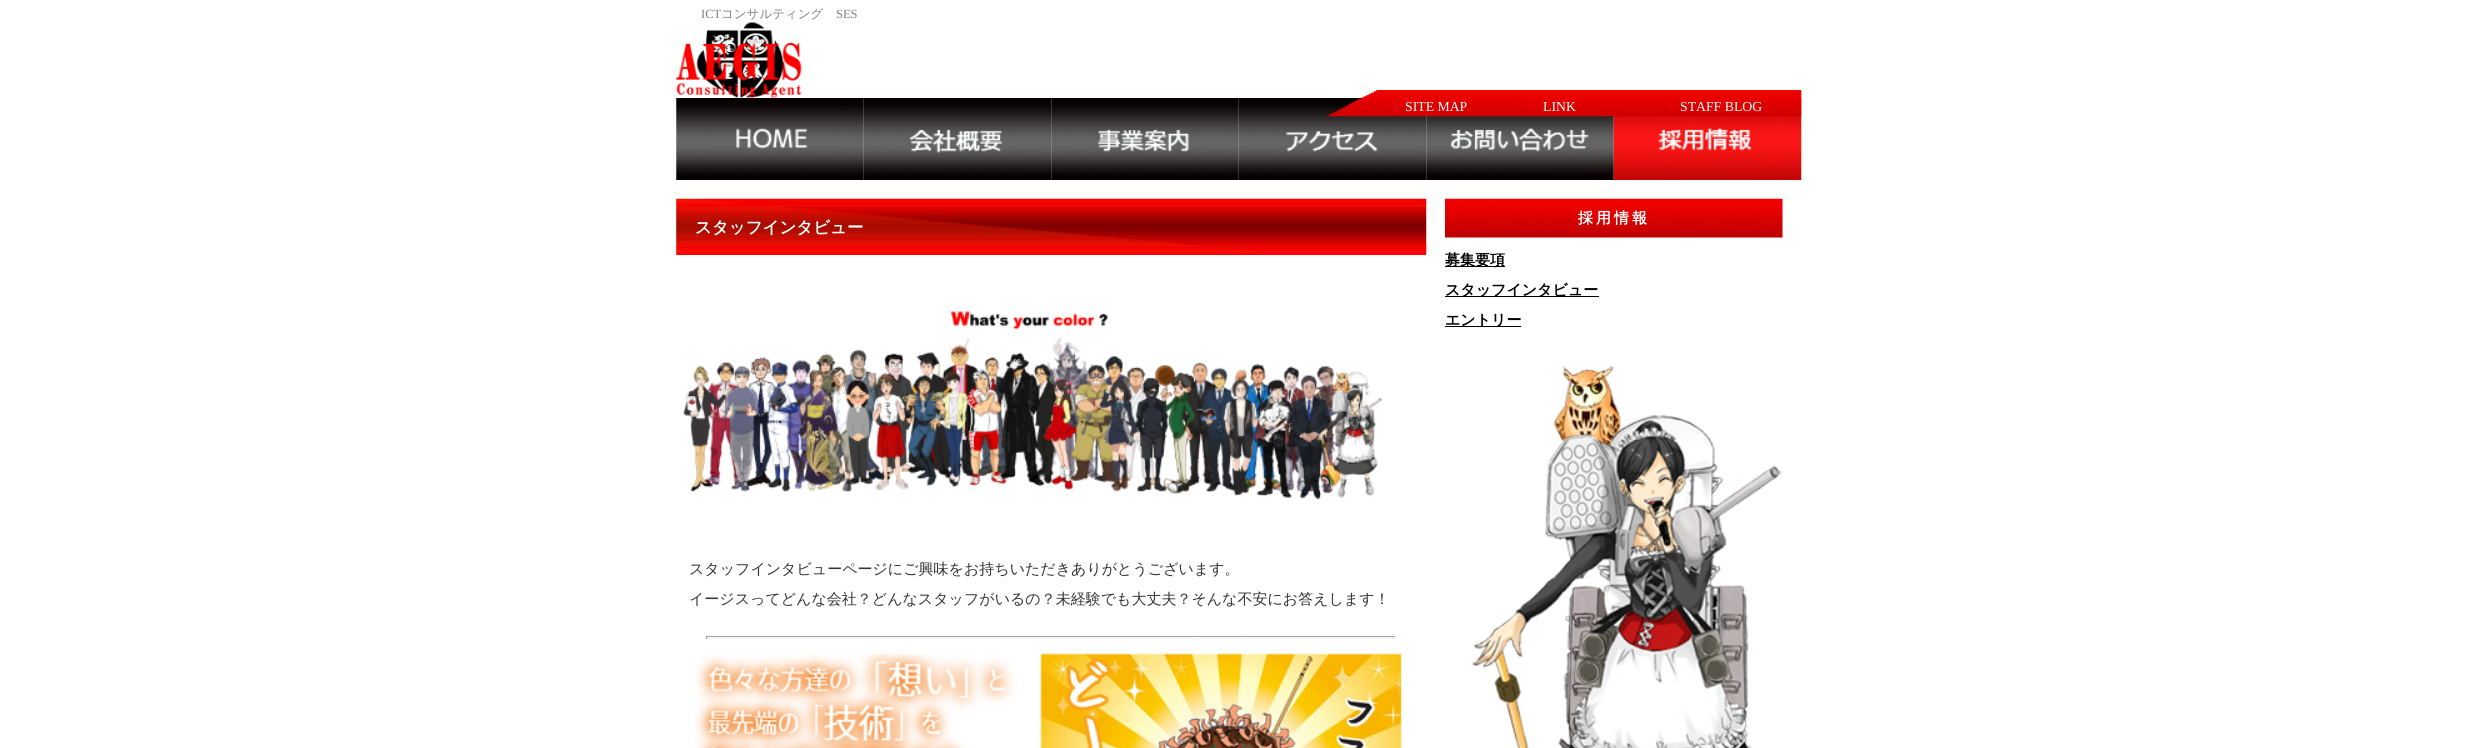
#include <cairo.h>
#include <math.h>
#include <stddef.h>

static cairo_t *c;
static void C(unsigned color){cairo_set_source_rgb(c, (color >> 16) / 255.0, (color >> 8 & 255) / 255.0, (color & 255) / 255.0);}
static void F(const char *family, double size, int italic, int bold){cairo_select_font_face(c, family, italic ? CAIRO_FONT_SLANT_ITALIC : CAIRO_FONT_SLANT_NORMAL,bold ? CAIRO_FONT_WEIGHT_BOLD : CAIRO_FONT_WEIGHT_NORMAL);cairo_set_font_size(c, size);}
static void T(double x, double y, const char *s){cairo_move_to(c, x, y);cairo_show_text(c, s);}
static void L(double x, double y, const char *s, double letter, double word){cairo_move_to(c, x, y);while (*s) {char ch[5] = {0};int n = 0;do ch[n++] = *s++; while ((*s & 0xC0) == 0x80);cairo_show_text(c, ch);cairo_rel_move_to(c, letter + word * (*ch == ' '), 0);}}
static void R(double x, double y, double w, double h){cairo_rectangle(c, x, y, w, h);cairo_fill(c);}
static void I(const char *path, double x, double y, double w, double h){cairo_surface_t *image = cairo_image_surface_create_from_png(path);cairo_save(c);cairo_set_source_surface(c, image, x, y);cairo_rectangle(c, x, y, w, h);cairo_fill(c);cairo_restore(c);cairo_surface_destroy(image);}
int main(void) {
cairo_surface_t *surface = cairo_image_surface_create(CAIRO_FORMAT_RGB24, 2477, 748);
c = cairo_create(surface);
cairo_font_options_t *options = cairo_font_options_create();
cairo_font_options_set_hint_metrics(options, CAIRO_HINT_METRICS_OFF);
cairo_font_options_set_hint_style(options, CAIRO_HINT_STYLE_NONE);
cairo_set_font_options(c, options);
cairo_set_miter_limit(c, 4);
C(0xffffff);
cairo_paint(c);
F("Liberation Serif",12.5,0,0);
C(0x808080);
T(701,18,"ICT");
F("WenQuanYi Zen Hei Medium",12.5,0,0);
T(721,18,"コンサルティング");
F("Liberation Serif",12.5,0,0);
T(836,18,"SES");
I("1.png",676,22,126,76);
I("6.png",676,98,188,82);
I("7.png",863,98,189,82);
I("8.png",1051,98,188,82);
I("9.png",1238,98,189,82);
I("10.png",1426,116,188,64);
I("11.png",1613,98,189,82);
I("2.png",1327,90,475,27);
I("3.png",1394,102,5,10);
F("Liberation Serif",13.75,0,0);
C(0xffffff);
T(1405,111,"SITE MAP");
I("4.png",1531,102,5,9);
T(1543,111,"LINK");
I("5.png",1669,102,5,10);
T(1680,111,"STAFF BLOG");
I("12.png",676,198,751,57);
F("WenQuanYi Zen Hei",16.5,0,1);
T(695,233,"スタッフインタビュー");
I("13.png",683,311,700,188);
F("WenQuanYi Zen Hei Medium",15,0,0);
C(0x333333);
T(689,574,"スタッフインタビューページにご興味をお持ちいただきありがとうございます。");
T(689,604,"イージスってどんな会社？どんなスタッフがいるの？未経験でも大丈夫？そんな不安にお答えします！");
C(0x9f9f9f);
R(706,636,690,1);
C(0xeeeeee);
R(1395,636,1,3);
R(706,638,690,1);
C(0x9f9f9f);
R(706,636,1,3);
I("14.png",694,653,708,95);
I("15.png",1445,198,338,40);
F("WenQuanYi Zen Hei",15,0,1);
C(0xffffff);
L(1578,223,"採用情報",3,0);
C(0x000000);
R(1445,266,60,1);
T(1445,265,"募集要項");
R(1445,296,154,1);
T(1445,295,"スタッフインタビュー");
R(1445,326,76,1);
T(1445,325,"エントリー");
I("16.png",1472,366,310,382);
cairo_surface_write_to_png(surface, "o.png");
cairo_font_options_destroy(options);
cairo_destroy(c);
cairo_surface_destroy(surface);
return 0;
}
